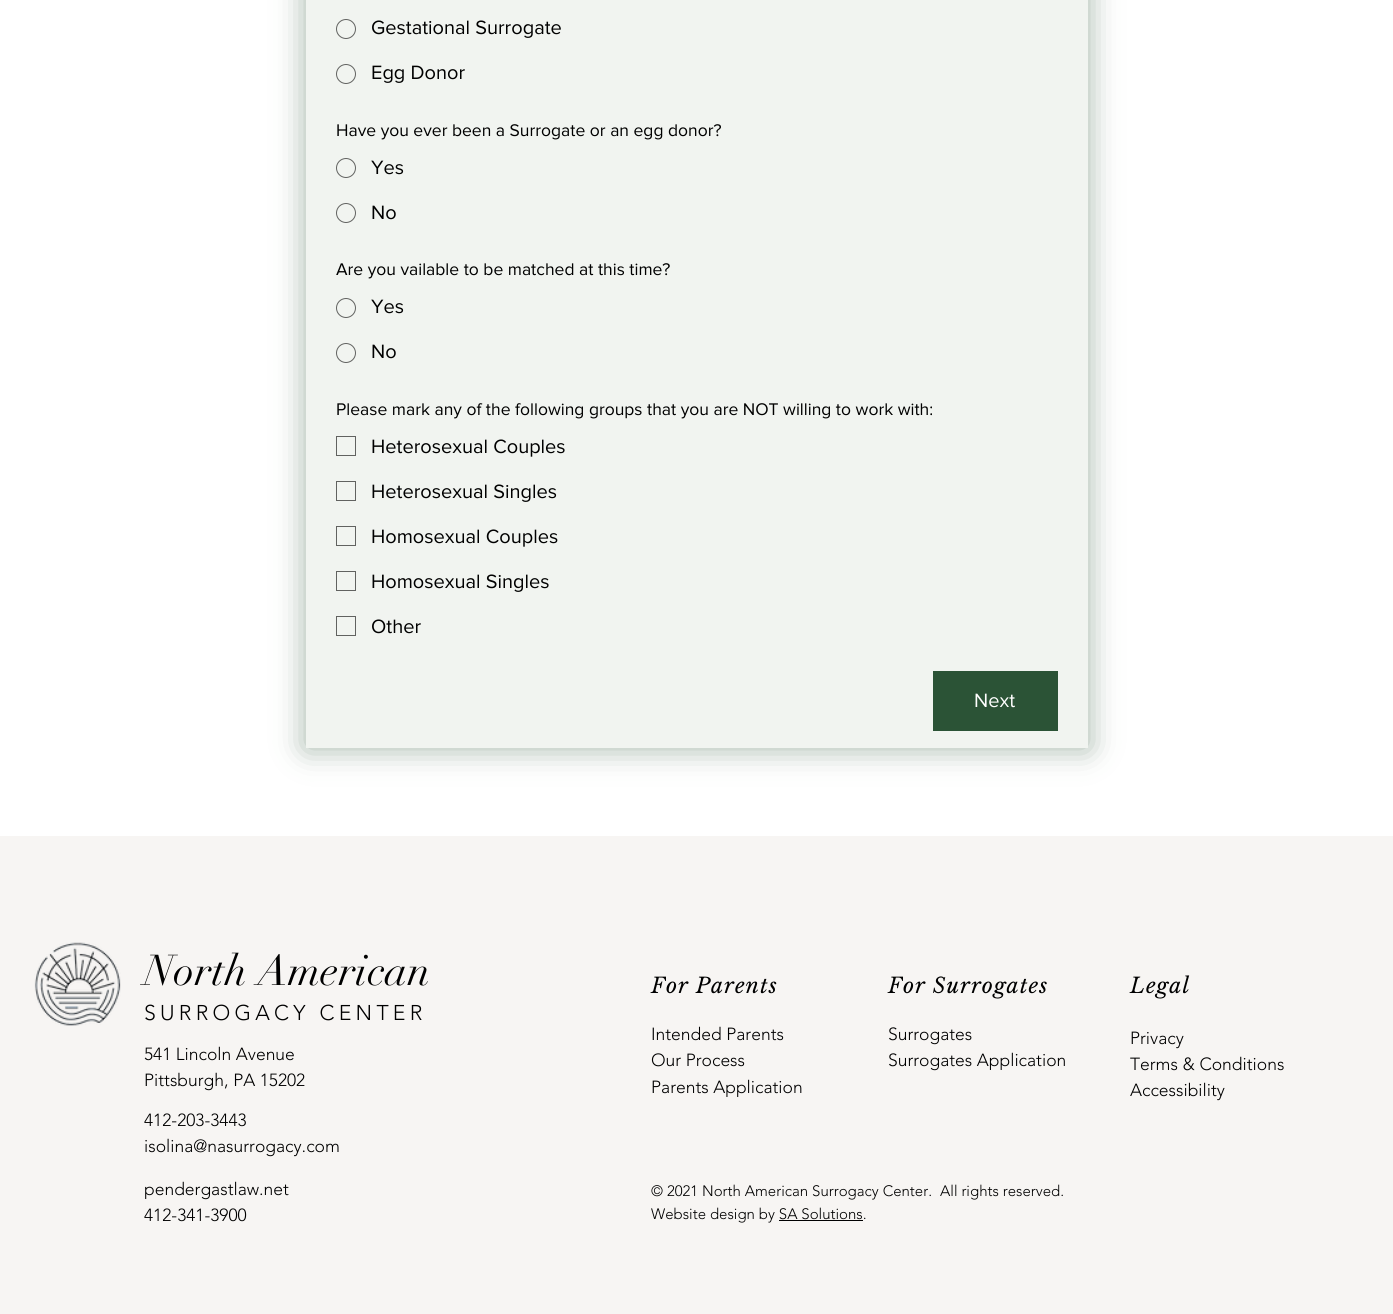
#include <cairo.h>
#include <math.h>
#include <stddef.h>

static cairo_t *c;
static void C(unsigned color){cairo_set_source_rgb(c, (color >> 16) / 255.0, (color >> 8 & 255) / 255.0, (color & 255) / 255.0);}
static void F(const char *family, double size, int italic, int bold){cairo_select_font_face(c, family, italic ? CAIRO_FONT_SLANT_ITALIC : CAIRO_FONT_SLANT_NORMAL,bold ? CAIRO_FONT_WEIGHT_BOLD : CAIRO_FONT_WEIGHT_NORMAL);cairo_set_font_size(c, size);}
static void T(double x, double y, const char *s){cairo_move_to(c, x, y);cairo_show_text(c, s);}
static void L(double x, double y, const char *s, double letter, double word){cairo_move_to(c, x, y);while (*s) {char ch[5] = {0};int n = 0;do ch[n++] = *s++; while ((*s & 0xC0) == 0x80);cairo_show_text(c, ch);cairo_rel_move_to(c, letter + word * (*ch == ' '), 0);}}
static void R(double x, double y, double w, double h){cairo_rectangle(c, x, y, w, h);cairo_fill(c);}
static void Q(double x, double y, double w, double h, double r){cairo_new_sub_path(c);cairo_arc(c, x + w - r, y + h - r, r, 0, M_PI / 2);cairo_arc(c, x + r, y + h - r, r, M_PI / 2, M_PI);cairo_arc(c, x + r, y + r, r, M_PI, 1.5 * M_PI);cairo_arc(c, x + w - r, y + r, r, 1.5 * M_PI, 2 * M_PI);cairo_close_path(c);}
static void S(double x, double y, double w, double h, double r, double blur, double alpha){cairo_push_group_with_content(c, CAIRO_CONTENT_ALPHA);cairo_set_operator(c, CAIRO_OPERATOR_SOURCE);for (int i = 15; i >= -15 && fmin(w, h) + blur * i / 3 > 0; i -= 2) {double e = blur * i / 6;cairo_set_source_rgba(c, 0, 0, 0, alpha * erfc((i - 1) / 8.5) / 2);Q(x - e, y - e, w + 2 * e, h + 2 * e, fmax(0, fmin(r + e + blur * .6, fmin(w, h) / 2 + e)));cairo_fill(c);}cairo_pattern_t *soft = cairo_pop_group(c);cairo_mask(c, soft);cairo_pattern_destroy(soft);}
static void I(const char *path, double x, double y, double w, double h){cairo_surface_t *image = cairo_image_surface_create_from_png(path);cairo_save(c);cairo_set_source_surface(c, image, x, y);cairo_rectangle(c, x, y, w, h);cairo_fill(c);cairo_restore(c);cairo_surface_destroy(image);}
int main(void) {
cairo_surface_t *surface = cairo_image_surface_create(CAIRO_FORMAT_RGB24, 1393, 1314);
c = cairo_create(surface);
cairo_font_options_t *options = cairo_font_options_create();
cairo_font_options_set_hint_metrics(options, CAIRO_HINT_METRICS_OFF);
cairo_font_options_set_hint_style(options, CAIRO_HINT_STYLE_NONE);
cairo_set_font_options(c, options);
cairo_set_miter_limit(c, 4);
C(0xffffff);
cairo_paint(c);
cairo_save(c);
cairo_set_fill_rule(c,CAIRO_FILL_RULE_EVEN_ODD);
cairo_new_path(c);
cairo_move_to(c,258,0);
cairo_line_to(c,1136,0);
cairo_line_to(c,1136,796);
cairo_line_to(c,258,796);
cairo_close_path(c);
cairo_move_to(c,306,-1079);
cairo_line_to(c,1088,-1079);
cairo_line_to(c,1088,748);
cairo_line_to(c,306,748);
cairo_close_path(c);
cairo_clip(c);
C(0x2b5336);
S(306,-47,782,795,0,15.5,.45);
cairo_restore(c);
cairo_set_source_rgba(c,0.816,0.855,0.8,0.29);
R(306,0,782,748);
cairo_arc(c,346,29,9.5,0,2 * M_PI);
C(0x616260);
cairo_set_line_width(c,1);
cairo_stroke(c);
F("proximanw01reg",20,0,0);
C(0x000000);
T(371,34,"Gestational Surrogate");
cairo_new_path(c);
cairo_arc(c,346,74,9.5,0,2 * M_PI);
C(0x616260);
cairo_stroke(c);
C(0x000000);
T(371,79,"Egg Donor");
F("proximanw01reg",17.5,0,0);
T(336,136,"Have you ever been a Surrogate or an egg donor?");
cairo_new_path(c);
cairo_arc(c,346,168,9.5,0,2 * M_PI);
C(0x616260);
cairo_stroke(c);
F("proximanw01reg",20,0,0);
C(0x000000);
T(371,174,"Yes");
cairo_new_path(c);
cairo_arc(c,346,213,9.5,0,2 * M_PI);
C(0x616260);
cairo_stroke(c);
C(0x000000);
T(371,219,"No");
F("proximanw01reg",17.5,0,0);
T(336,275,"Are you vailable to be matched at this time?");
cairo_new_path(c);
cairo_arc(c,346,308,9.5,0,2 * M_PI);
C(0x616260);
cairo_stroke(c);
F("proximanw01reg",20,0,0);
C(0x000000);
T(371,313,"Yes");
cairo_new_path(c);
cairo_arc(c,346,353,9.5,0,2 * M_PI);
C(0x616260);
cairo_stroke(c);
C(0x000000);
T(371,358,"No");
F("proximanw01reg",17.5,0,0);
T(336,415,"Please mark any of the following groups that you are NOT willing to work with:");
cairo_rectangle(c,336.5,436.5,19,19);
C(0x616260);
cairo_stroke(c);
F("proximanw01reg",20,0,0);
C(0x000000);
T(371,453,"Heterosexual Couples");
cairo_rectangle(c,336.5,481.5,19,19);
C(0x616260);
cairo_stroke(c);
C(0x000000);
T(371,498,"Heterosexual Singles");
cairo_rectangle(c,336.5,526.5,19,19);
C(0x616260);
cairo_stroke(c);
C(0x000000);
T(371,543,"Homosexual Couples");
cairo_rectangle(c,336.5,571.5,19,19);
C(0x616260);
cairo_stroke(c);
C(0x000000);
T(371,588,"Homosexual Singles");
cairo_rectangle(c,336.5,616.5,19,19);
C(0x616260);
cairo_stroke(c);
C(0x000000);
T(371,633,"Other");
C(0x2b5336);
R(933,671,125,60);
C(0xffffff);
T(974,707,"Next");
C(0xf7f5f3);
R(0,836,1393,478);
I("1.png",34,942,87,84);
F("didot",42.5,0,0);
C(0x000000);
T(144,985,"North American");
F("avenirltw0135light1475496 Light",21.25,0,0);
L(144,1020,"SURROGACY CENTER",4.25,0);
F("avenirltw0135light1475496 Light",17.5,0,0);
T(144,1060,"541 Lincoln Avenue");
T(144,1086,"Pittsburgh, PA 15202");
T(144,1126,"412-203-3443");
T(144,1152,"isolina@nasurrogacy.com");
T(144,1195,"pendergastlaw.net");
T(144,1221,"412-341-3900");
F("Libre Baskerville",21.25,1,0);
L(651,993,"For Parents",1,0);
L(888,993,"For Surrogates",1,0);
L(1130,993,"Legal",1,0);
F("avenirltw0135light1475496 Light",17.5,0,0);
T(651,1040,"Intended Parents");
T(651,1066,"Our Process");
T(651,1093,"Parents Application");
T(888,1040,"Surrogates");
T(888,1066,"Surrogates Application");
T(1130,1044,"Privacy");
T(1130,1070,"Terms & Conditions");
T(1130,1096,"Accessibility");
F("avenirltw0135light1475496 Light",15,0,0);
T(651,1196,"© 2021 North American Surrogacy Center.");
T(940,1196,"All rights reserved.");
T(651,1219,"Website design by SA Solutions.");
R(779,1220,84,1);
cairo_surface_write_to_png(surface, "o.png");
cairo_font_options_destroy(options);
cairo_destroy(c);
cairo_surface_destroy(surface);
return 0;
}
